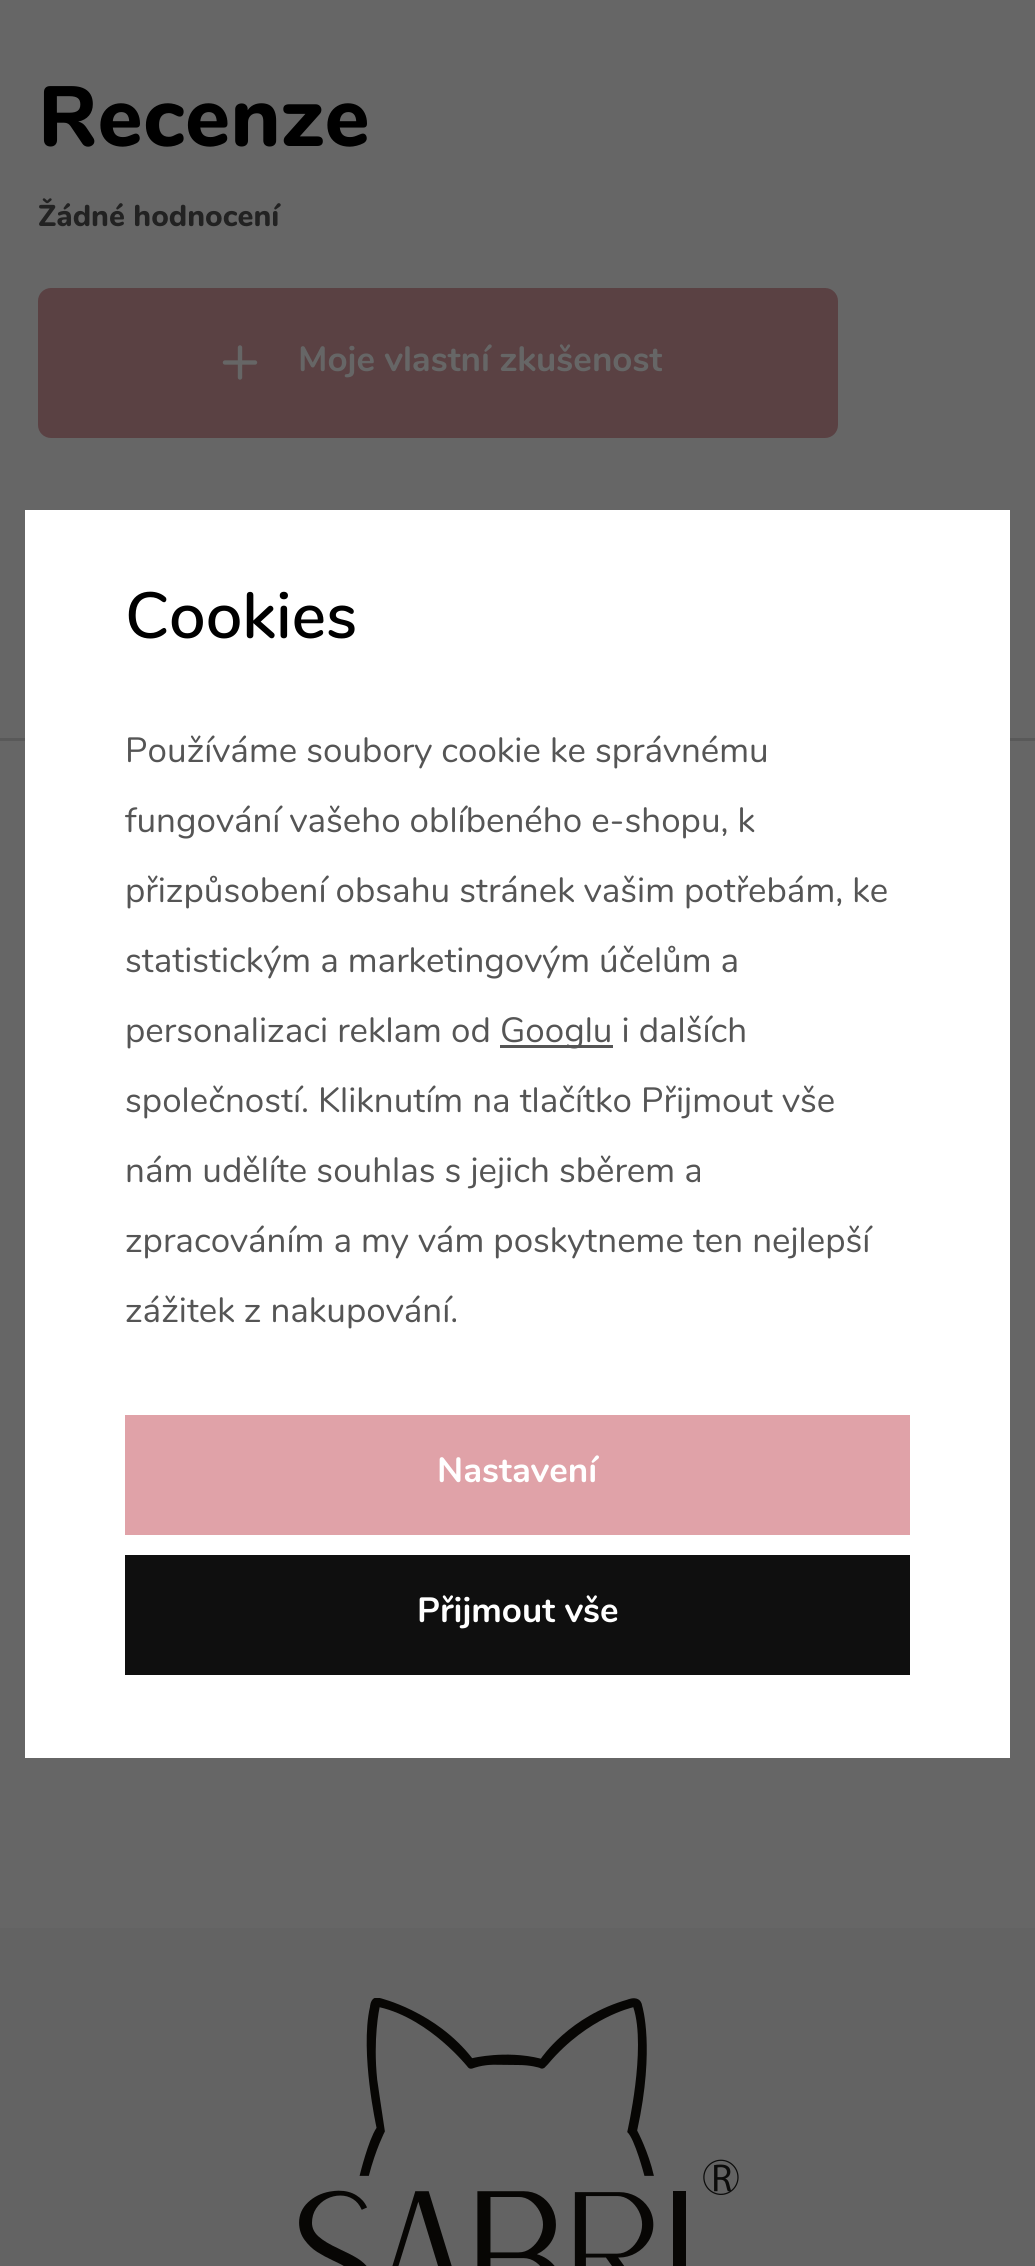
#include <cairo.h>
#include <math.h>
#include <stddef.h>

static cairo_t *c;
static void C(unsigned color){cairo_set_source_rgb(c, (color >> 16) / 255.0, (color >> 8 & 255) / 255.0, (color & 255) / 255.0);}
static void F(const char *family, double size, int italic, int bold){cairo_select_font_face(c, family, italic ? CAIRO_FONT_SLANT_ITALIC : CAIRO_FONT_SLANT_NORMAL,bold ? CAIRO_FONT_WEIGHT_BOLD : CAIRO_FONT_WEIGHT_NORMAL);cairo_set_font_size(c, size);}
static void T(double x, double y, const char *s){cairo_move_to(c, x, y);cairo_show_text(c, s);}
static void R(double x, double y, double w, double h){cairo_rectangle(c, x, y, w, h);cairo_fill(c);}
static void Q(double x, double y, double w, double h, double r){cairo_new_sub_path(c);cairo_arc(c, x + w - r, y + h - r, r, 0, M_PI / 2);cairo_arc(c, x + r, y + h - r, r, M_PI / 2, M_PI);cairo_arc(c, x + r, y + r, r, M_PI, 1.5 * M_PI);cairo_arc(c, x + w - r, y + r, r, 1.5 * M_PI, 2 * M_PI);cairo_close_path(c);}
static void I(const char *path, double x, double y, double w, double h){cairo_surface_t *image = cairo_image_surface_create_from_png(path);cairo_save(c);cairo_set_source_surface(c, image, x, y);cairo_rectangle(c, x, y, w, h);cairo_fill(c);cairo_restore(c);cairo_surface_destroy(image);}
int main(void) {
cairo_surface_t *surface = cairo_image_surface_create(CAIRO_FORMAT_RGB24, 1035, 2266);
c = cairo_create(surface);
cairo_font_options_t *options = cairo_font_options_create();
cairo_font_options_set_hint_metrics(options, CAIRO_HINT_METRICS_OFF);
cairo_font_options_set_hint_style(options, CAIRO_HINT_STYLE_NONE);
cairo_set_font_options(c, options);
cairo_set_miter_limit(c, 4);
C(0x666666);
cairo_paint(c);
F("Nunito ExtraBold",85,0,0);
C(0x000000);
T(38,146,"Recenze");
F("Nunito ExtraBold",30,0,0);
C(0x222222);
T(38,226,"Žádné hodnocení");
C(0x5a4143);
Q(40.5,290.5,795,145,10.5);
cairo_fill_preserve(c);
cairo_set_line_width(c,5);
cairo_stroke(c);
I("1.png",222,345,36,35);
F("Nunito",35,0,1);
C(0x666666);
T(298,371,"Moje vlastní zkušenost");
C(0x595959);
R(0,738,1035,3);
C(0xffffff);
R(25,510,985,1248);
F("Nunito SemiBold",65,0,0);
C(0x000000);
T(125,638,"Cookies");
F("Nunito",35,0,0);
C(0x555555);
T(125,762,"Používáme soubory cookie ke správnému");
T(125,832,"fungování vašeho oblíbeného e-shopu, k");
T(125,902,"přizpůsobení obsahu stránek vašim potřebám, ke");
T(125,972,"statistickým a marketingovým účelům a");
T(125,1042,"personalizaci reklam od");
R(500,1045,113,3);
T(500,1042,"Googlu i dalších");
T(125,1112,"společností. Kliknutím na tlačítko Přijmout vše");
T(125,1182,"nám udělíte souhlas s jejich sběrem a");
T(125,1252,"zpracováním a my vám poskytneme ten nejlepší");
T(125,1322,"zážitek z nakupování.");
C(0xe0a2a8);
R(125,1415,785,120);
F("Nunito",35,0,1);
C(0xffffff);
T(437,1482,"Nastavení");
C(0x0f0f0f);
R(125,1555,785,120);
C(0xffffff);
T(417,1622,"Přijmout vše");
C(0x636363);
R(0,1928,1035,338);
I("2.png",299,1998,440,268);
cairo_surface_write_to_png(surface, "o.png");
cairo_font_options_destroy(options);
cairo_destroy(c);
cairo_surface_destroy(surface);
return 0;
}
